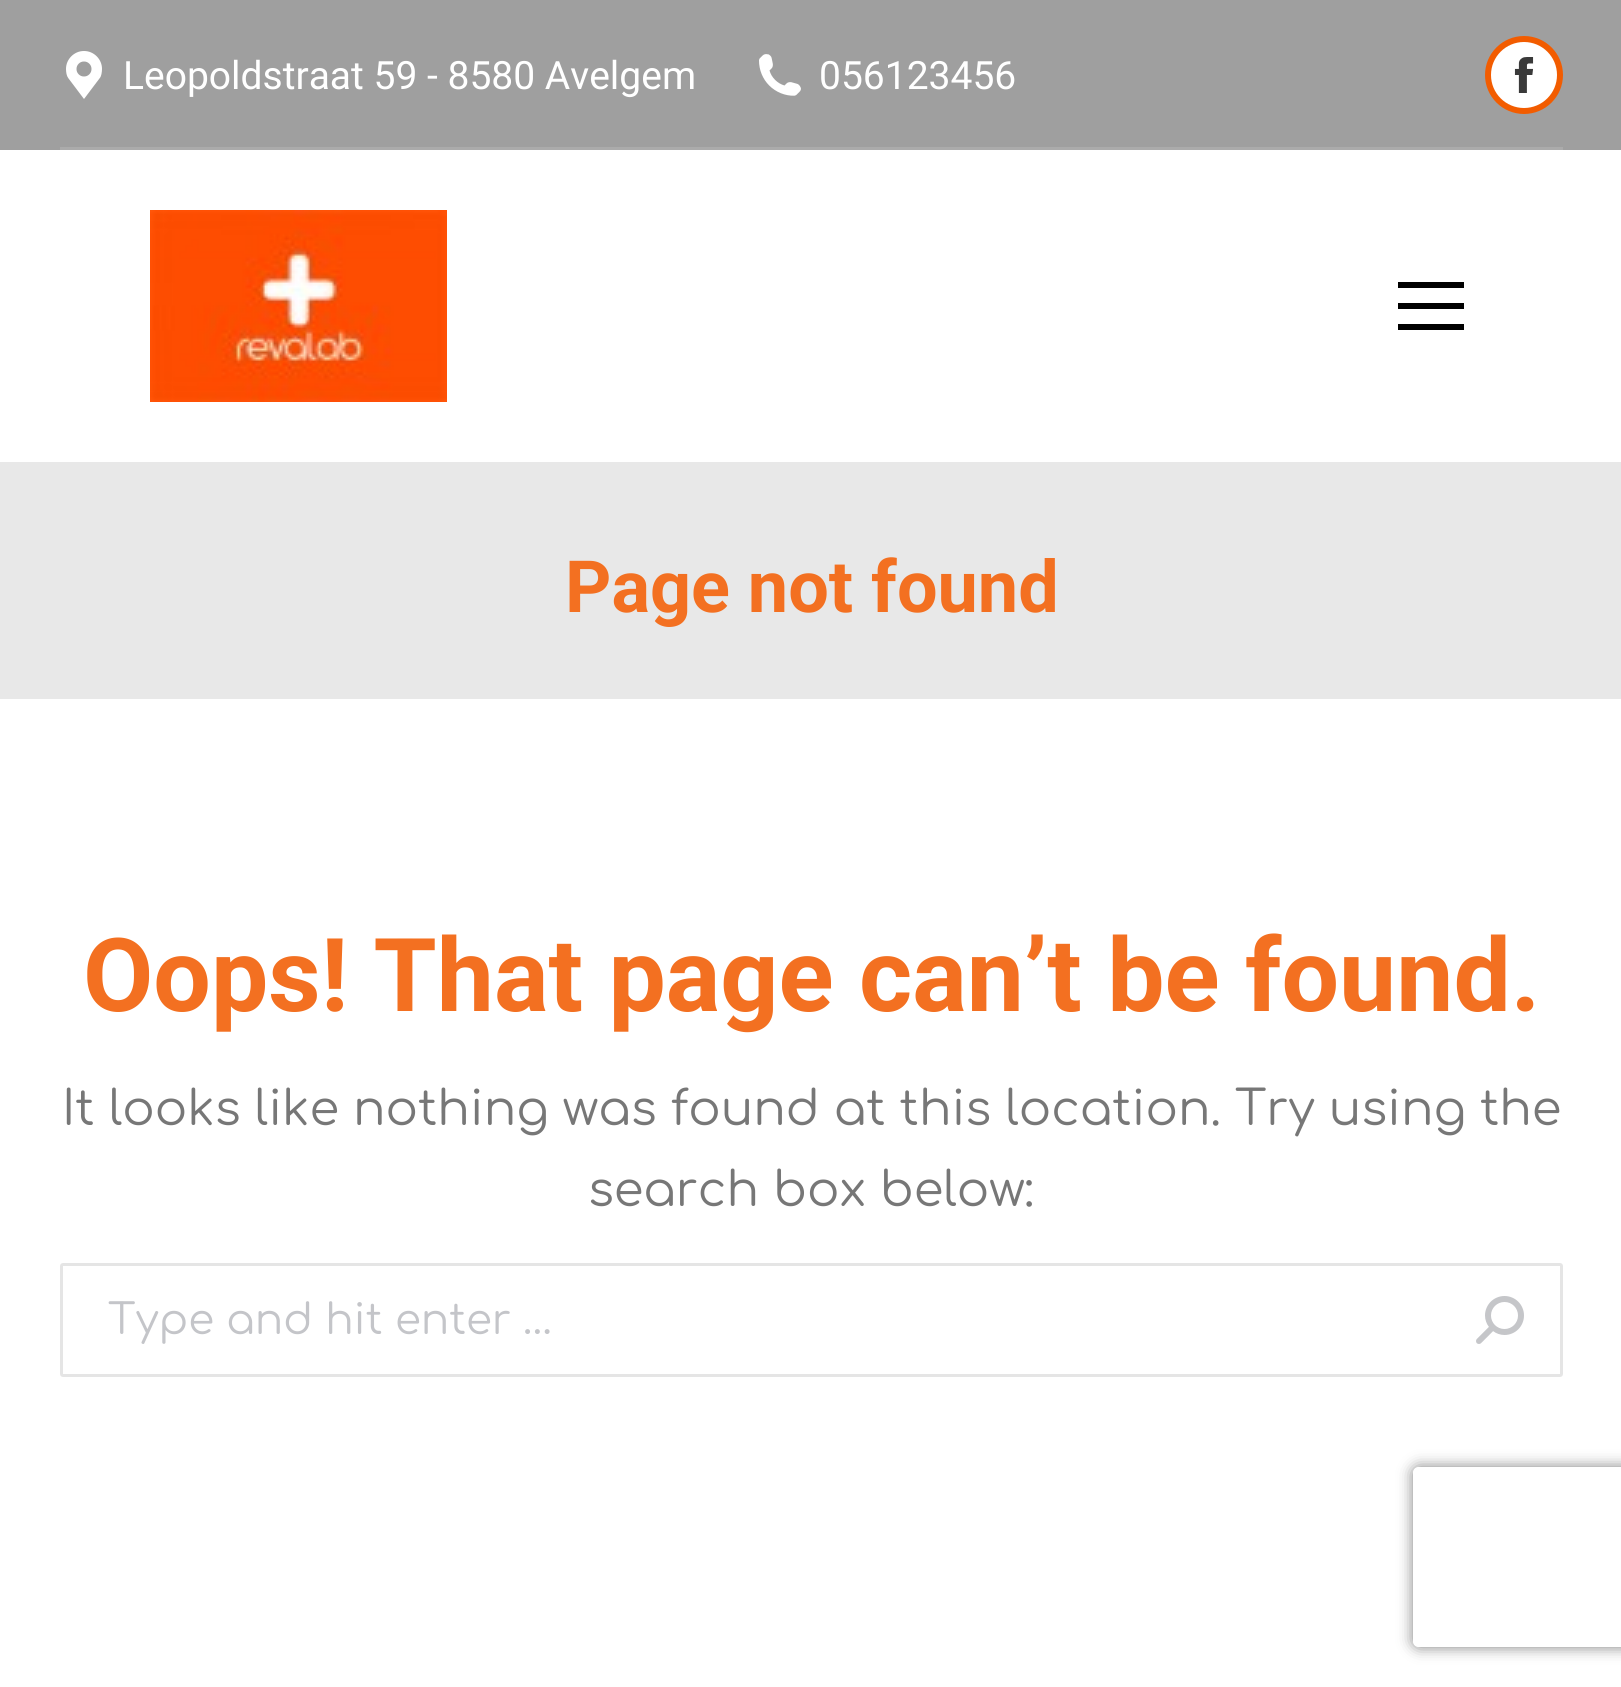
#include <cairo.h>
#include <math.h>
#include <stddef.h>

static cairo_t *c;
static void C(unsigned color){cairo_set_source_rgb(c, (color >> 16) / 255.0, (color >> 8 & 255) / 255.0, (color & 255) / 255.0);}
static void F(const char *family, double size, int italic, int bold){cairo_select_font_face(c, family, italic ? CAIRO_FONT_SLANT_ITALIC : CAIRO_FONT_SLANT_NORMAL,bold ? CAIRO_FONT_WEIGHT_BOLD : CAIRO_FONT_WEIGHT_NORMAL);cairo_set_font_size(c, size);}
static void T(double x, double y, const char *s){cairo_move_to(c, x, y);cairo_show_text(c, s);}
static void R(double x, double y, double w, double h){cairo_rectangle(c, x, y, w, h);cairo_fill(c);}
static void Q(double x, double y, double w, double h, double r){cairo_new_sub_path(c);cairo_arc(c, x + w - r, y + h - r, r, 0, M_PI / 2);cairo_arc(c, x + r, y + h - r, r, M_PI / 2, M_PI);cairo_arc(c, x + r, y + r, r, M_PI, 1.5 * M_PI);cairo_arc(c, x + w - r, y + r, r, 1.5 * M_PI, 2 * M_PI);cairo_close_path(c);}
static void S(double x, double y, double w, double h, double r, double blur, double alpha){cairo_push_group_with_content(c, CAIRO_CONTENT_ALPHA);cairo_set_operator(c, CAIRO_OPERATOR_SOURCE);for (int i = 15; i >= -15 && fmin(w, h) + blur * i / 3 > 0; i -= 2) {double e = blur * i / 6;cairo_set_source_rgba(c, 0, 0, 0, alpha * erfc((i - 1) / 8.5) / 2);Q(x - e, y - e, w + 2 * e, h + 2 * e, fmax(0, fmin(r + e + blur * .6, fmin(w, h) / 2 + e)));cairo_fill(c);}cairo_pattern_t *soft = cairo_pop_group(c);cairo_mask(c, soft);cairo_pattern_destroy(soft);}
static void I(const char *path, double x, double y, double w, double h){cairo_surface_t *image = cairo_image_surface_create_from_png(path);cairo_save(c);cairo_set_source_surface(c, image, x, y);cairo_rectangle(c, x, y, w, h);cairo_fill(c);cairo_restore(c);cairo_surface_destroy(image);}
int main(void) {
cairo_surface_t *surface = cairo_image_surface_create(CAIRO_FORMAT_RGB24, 1621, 1687);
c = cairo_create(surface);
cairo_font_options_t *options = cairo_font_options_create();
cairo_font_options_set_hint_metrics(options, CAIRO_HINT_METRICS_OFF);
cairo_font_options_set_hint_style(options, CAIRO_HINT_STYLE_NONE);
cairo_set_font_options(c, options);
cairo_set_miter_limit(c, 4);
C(0xffffff);
cairo_paint(c);
C(0x9f9f9f);
R(0,0,1621,150);
I("1.png",66,51,36,48);
F("Roboto",39,0,0);
C(0xffffff);
T(123,89,"Leopoldstraat 59 - 8580 Avelgem");
I("2.png",759,54,42,42);
T(819,89,"056123456");
cairo_new_path(c);
cairo_arc(c,1524,75,36,0,2 * M_PI);
cairo_fill_preserve(c);
C(0xf25c00);
cairo_set_line_width(c,6);
cairo_stroke(c);
I("3.png",1514,57,20,36);
C(0xababab);
R(60,147,1503,3);
I("4.png",150,210,297,192);
C(0x000000);
R(1398,282,66,6);
R(1398,303,66,6);
R(1398,324,66,6);
C(0xe8e8e8);
R(0,462,1621,237);
F("Roboto",72,0,1);
C(0xf37021);
T(565,612,"Page not found");
F("Roboto",102,0,1);
T(83,1011,"Oops! That page can’t be found.");
F("Comfortaa",48,0,0);
C(0x777777);
T(62,1125,"It looks like nothing was found at this location. Try using the");
T(588,1206,"search box below:");
Q(61.5,1264.5,1500,111,1.5);
C(0xe5e5e5);
cairo_set_line_width(c,3);
cairo_stroke(c);
F("Comfortaa",42,0,0);
C(0xc4c5c9);
T(108,1334,"Type and hit enter …");
I("5.png",1476,1296,48,48);
cairo_save(c);
cairo_set_fill_rule(c,CAIRO_FILL_RULE_EVEN_ODD);
cairo_new_path(c);
cairo_move_to(c,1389,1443);
cairo_line_to(c,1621,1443);
cairo_line_to(c,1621,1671);
cairo_line_to(c,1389,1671);
cairo_close_path(c);
cairo_move_to(c,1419,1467);
cairo_line_to(c,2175,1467);
cairo_curve_to(c,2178.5,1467,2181,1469.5,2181,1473);
cairo_line_to(c,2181,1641);
cairo_curve_to(c,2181,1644.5,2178.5,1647,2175,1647);
cairo_line_to(c,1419,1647);
cairo_curve_to(c,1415.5,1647,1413,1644.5,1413,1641);
cairo_line_to(c,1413,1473);
cairo_curve_to(c,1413,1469.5,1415.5,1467,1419,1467);
cairo_close_path(c);
cairo_clip(c);
C(0x808080);
S(1413,1467,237,180,6,7.5,1);
cairo_restore(c);
cairo_surface_write_to_png(surface, "o.png");
cairo_font_options_destroy(options);
cairo_destroy(c);
cairo_surface_destroy(surface);
return 0;
}
